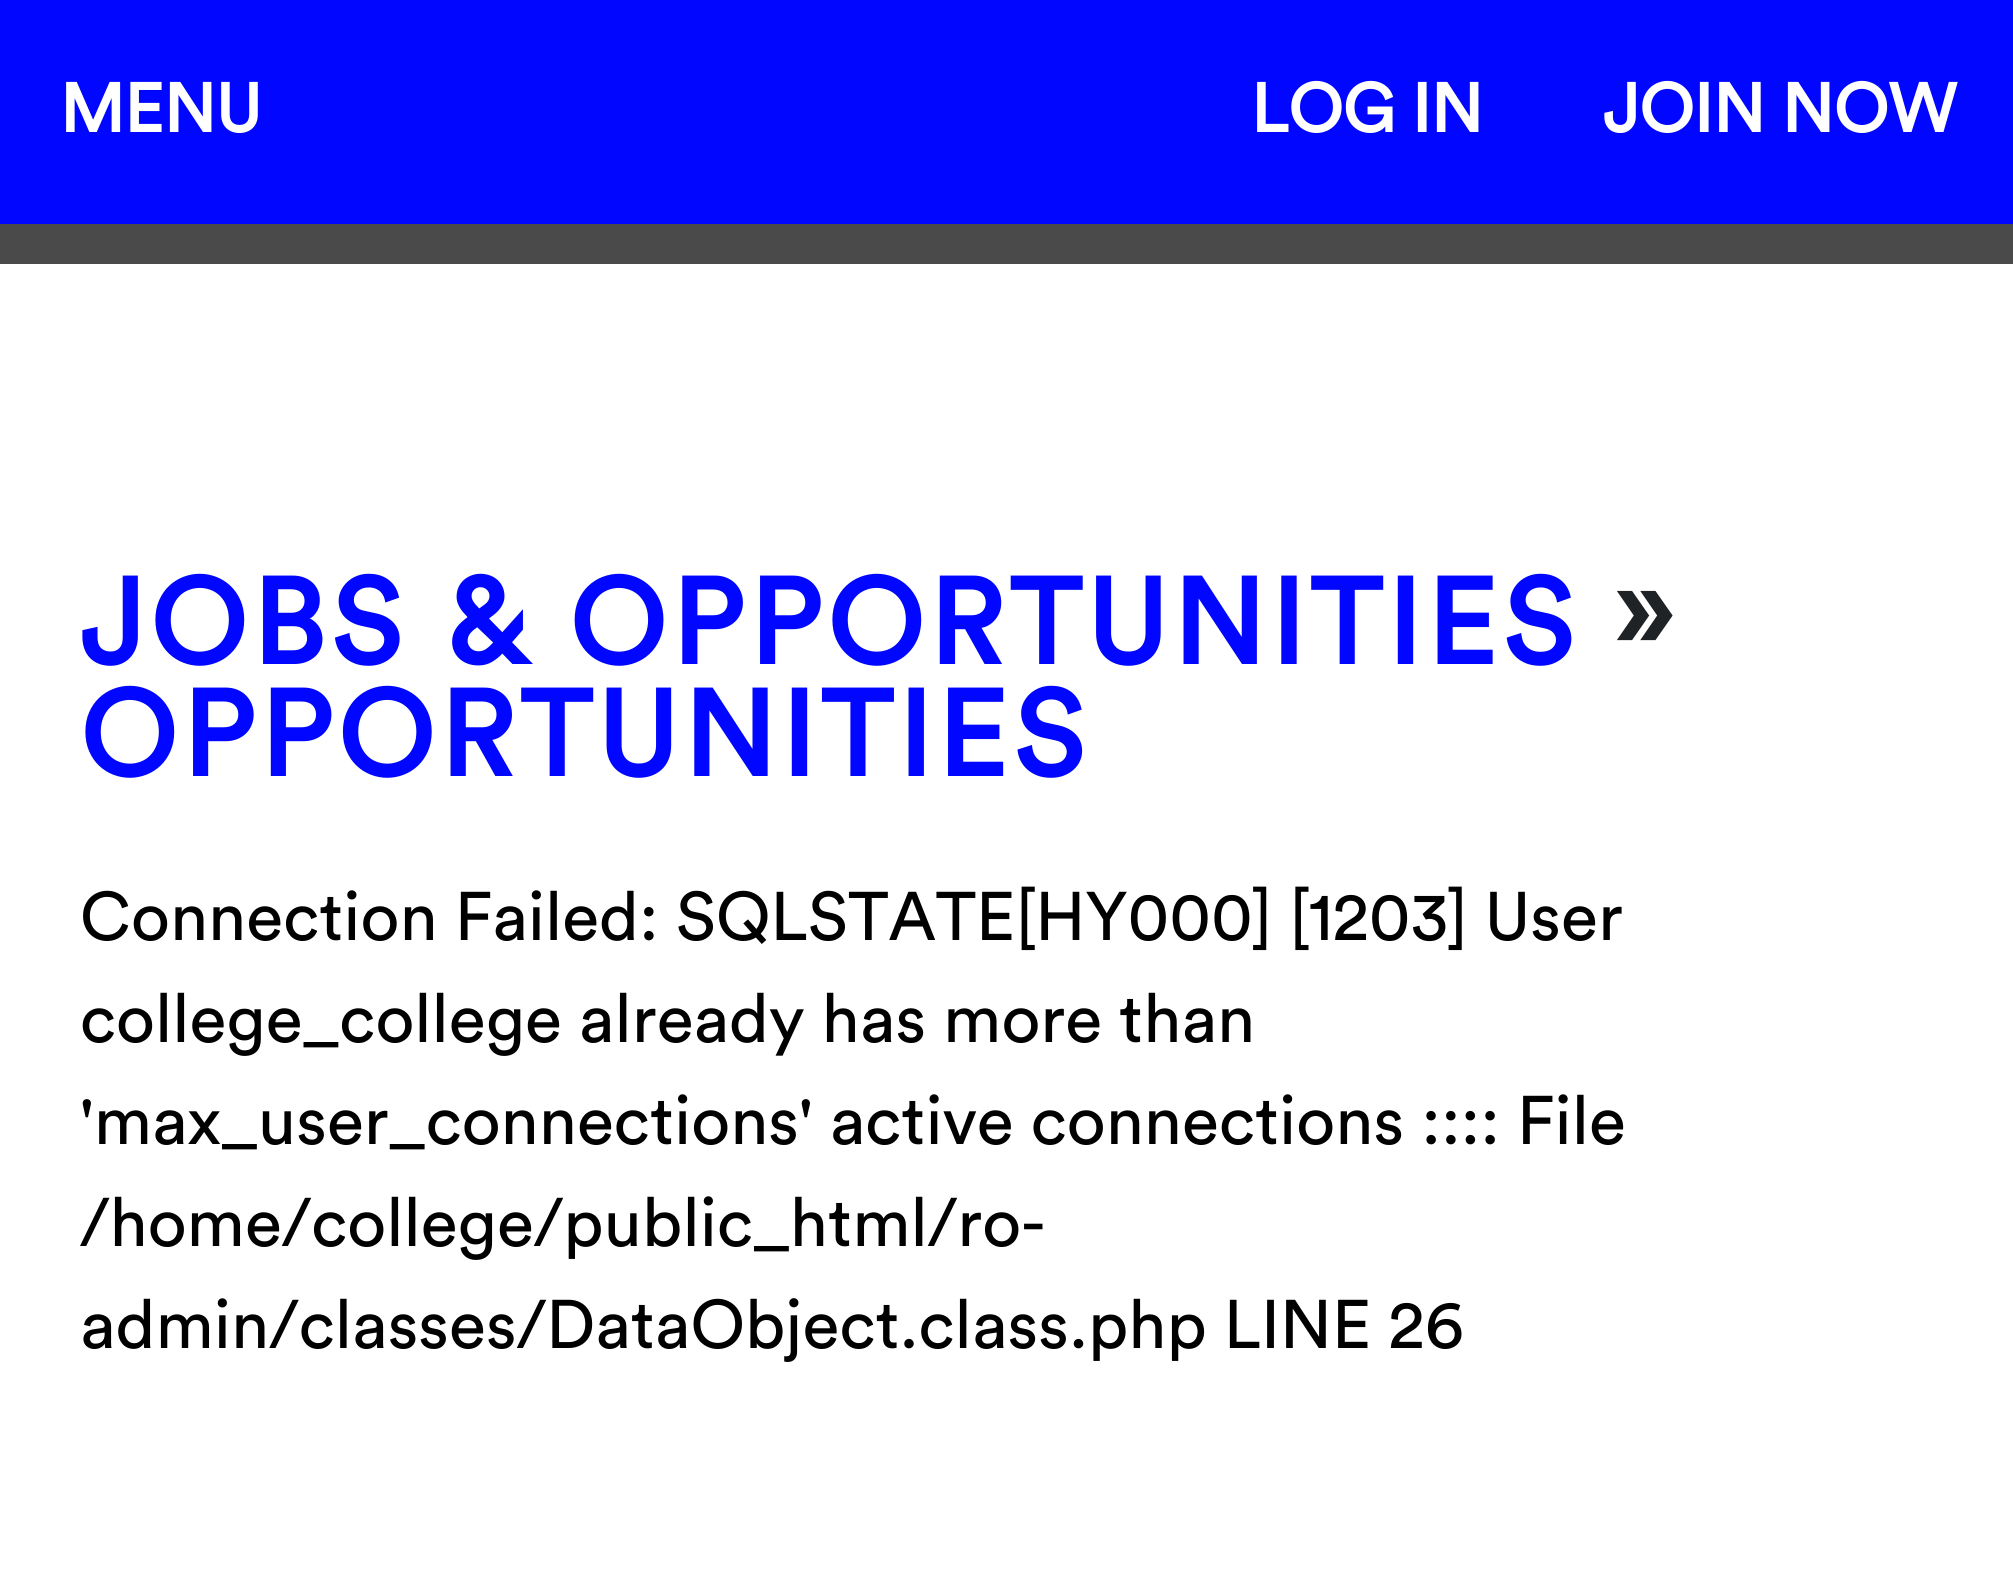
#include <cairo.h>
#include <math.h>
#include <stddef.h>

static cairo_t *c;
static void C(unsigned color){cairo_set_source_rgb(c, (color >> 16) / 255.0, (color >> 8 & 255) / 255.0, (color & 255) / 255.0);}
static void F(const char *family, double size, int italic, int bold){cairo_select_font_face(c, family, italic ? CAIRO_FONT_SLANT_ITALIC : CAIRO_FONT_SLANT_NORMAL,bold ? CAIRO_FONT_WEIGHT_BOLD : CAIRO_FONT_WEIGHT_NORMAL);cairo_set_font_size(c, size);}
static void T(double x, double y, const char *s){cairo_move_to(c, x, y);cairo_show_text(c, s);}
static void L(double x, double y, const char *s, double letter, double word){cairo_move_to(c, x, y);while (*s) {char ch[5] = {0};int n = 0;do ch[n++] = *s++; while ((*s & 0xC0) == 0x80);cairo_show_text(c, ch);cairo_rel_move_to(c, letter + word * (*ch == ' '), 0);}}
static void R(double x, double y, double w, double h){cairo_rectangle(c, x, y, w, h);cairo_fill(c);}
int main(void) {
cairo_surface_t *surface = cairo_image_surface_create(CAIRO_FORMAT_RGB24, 2013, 1574);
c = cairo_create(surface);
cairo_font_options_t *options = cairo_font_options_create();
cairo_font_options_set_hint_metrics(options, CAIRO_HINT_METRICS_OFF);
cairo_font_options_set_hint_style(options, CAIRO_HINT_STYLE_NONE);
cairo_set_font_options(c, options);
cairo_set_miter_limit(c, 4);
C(0x4a4a4a);
cairo_paint(c);
C(0x0006ff);
R(0,0,2013,224);
F("Circular",68,0,1);
C(0xffffff);
T(60,132,"MENU");
T(1251,132,"LOG IN");
T(1603,132,"JOIN NOW");
R(0,264,2013,1310);
F("Circular",120,0,1);
C(0x0006ff);
L(80,664,"JOBS & OPPORTUNITIES",6,0);
C(0x1f2325);
L(1616,652,"»",6,0);
C(0x0006ff);
L(80,776,"OPPORTUNITIES",6,0);
F("Circular",68,0,0);
C(0x000000);
T(80,940,"Connection Failed: SQLSTATE[HY000] [1203] User");
T(80,1042,"college_college already has more than");
T(80,1144,"'max_user_connections' active connections :::: File");
T(80,1246,"/home/college/public_html/ro-");
T(80,1348,"admin/classes/DataObject.class.php LINE 26");
cairo_surface_write_to_png(surface, "o.png");
cairo_font_options_destroy(options);
cairo_destroy(c);
cairo_surface_destroy(surface);
return 0;
}
